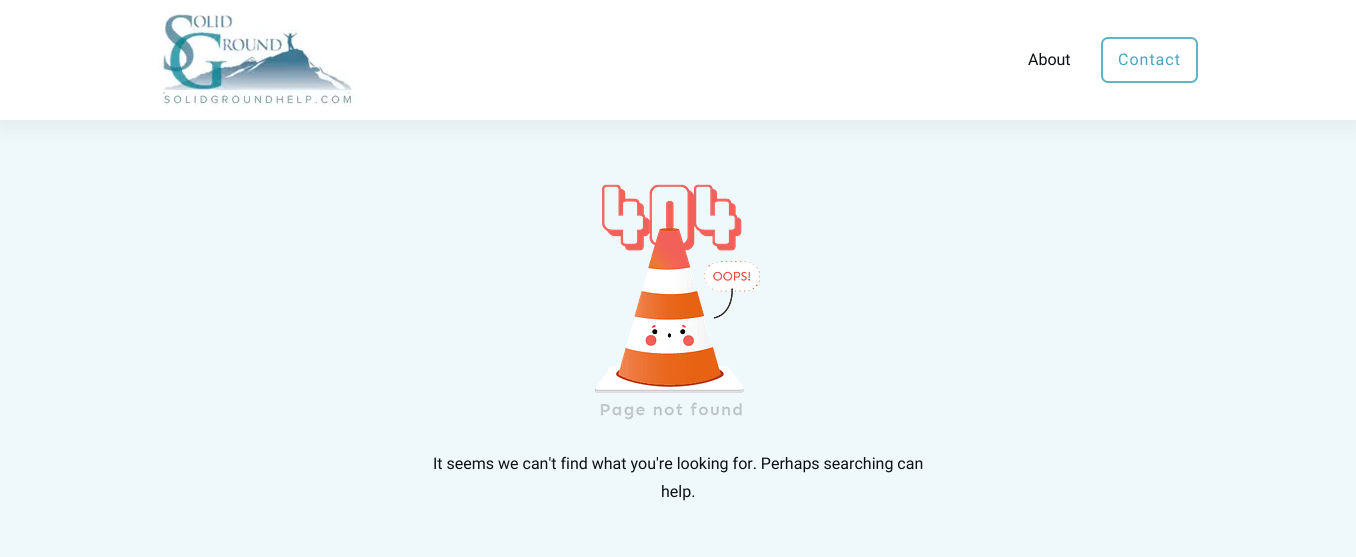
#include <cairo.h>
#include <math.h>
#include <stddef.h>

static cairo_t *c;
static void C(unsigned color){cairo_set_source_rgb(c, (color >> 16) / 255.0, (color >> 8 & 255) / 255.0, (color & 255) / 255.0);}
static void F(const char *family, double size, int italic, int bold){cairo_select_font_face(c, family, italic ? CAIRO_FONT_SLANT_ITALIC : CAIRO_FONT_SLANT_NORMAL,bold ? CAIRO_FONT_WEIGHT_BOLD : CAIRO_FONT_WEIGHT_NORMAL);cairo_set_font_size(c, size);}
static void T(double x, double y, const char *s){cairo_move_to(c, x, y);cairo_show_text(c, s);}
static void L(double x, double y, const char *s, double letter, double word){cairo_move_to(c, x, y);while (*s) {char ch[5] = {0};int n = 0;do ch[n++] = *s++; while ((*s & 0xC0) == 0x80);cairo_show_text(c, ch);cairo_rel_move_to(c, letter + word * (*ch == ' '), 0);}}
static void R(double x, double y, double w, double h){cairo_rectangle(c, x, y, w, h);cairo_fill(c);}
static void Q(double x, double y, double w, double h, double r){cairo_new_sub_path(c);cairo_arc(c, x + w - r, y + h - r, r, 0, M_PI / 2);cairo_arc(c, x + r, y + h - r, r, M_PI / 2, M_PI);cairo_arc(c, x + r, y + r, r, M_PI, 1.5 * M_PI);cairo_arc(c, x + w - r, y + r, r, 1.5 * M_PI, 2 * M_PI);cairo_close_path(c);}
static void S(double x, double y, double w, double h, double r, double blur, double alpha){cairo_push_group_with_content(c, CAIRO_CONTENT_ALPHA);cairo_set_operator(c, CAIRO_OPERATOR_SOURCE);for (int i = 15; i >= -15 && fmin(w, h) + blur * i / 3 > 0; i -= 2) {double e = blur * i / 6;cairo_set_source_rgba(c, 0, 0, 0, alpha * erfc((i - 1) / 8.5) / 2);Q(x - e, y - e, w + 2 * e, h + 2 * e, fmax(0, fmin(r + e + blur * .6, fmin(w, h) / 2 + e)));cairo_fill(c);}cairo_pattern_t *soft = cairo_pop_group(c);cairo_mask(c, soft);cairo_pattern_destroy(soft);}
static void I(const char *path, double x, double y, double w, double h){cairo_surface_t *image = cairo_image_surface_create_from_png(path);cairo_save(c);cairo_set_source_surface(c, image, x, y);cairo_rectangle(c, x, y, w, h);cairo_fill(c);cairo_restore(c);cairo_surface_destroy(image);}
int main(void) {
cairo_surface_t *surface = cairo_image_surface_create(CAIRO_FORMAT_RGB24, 1356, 557);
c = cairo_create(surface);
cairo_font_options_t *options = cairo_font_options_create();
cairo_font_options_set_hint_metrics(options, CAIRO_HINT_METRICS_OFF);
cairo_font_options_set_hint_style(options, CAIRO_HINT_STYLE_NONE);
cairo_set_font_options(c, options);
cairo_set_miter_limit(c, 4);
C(0xeff9fb);
cairo_paint(c);
C(0x000000);
S(0,2,1356,120,0,15,.08);
C(0xffffff);
R(0,0,1356,120);
I("1.png",158,14,198,92);
F("Roboto",16,0,0);
C(0x0c1115);
T(1028,65,"About");
Q(1102,38,95,44,6);
C(0x61b4c4);
cairo_stroke(c);
C(0x47a7bd);
L(1118,65,"Contact",1,0);
I("2.png",595,184,165,236);
C(0x0c1115);
T(433,469,"It seems we can't find what you're looking for. Perhaps searching can");
T(661,497,"help.");
cairo_surface_write_to_png(surface, "o.png");
cairo_font_options_destroy(options);
cairo_destroy(c);
cairo_surface_destroy(surface);
return 0;
}
